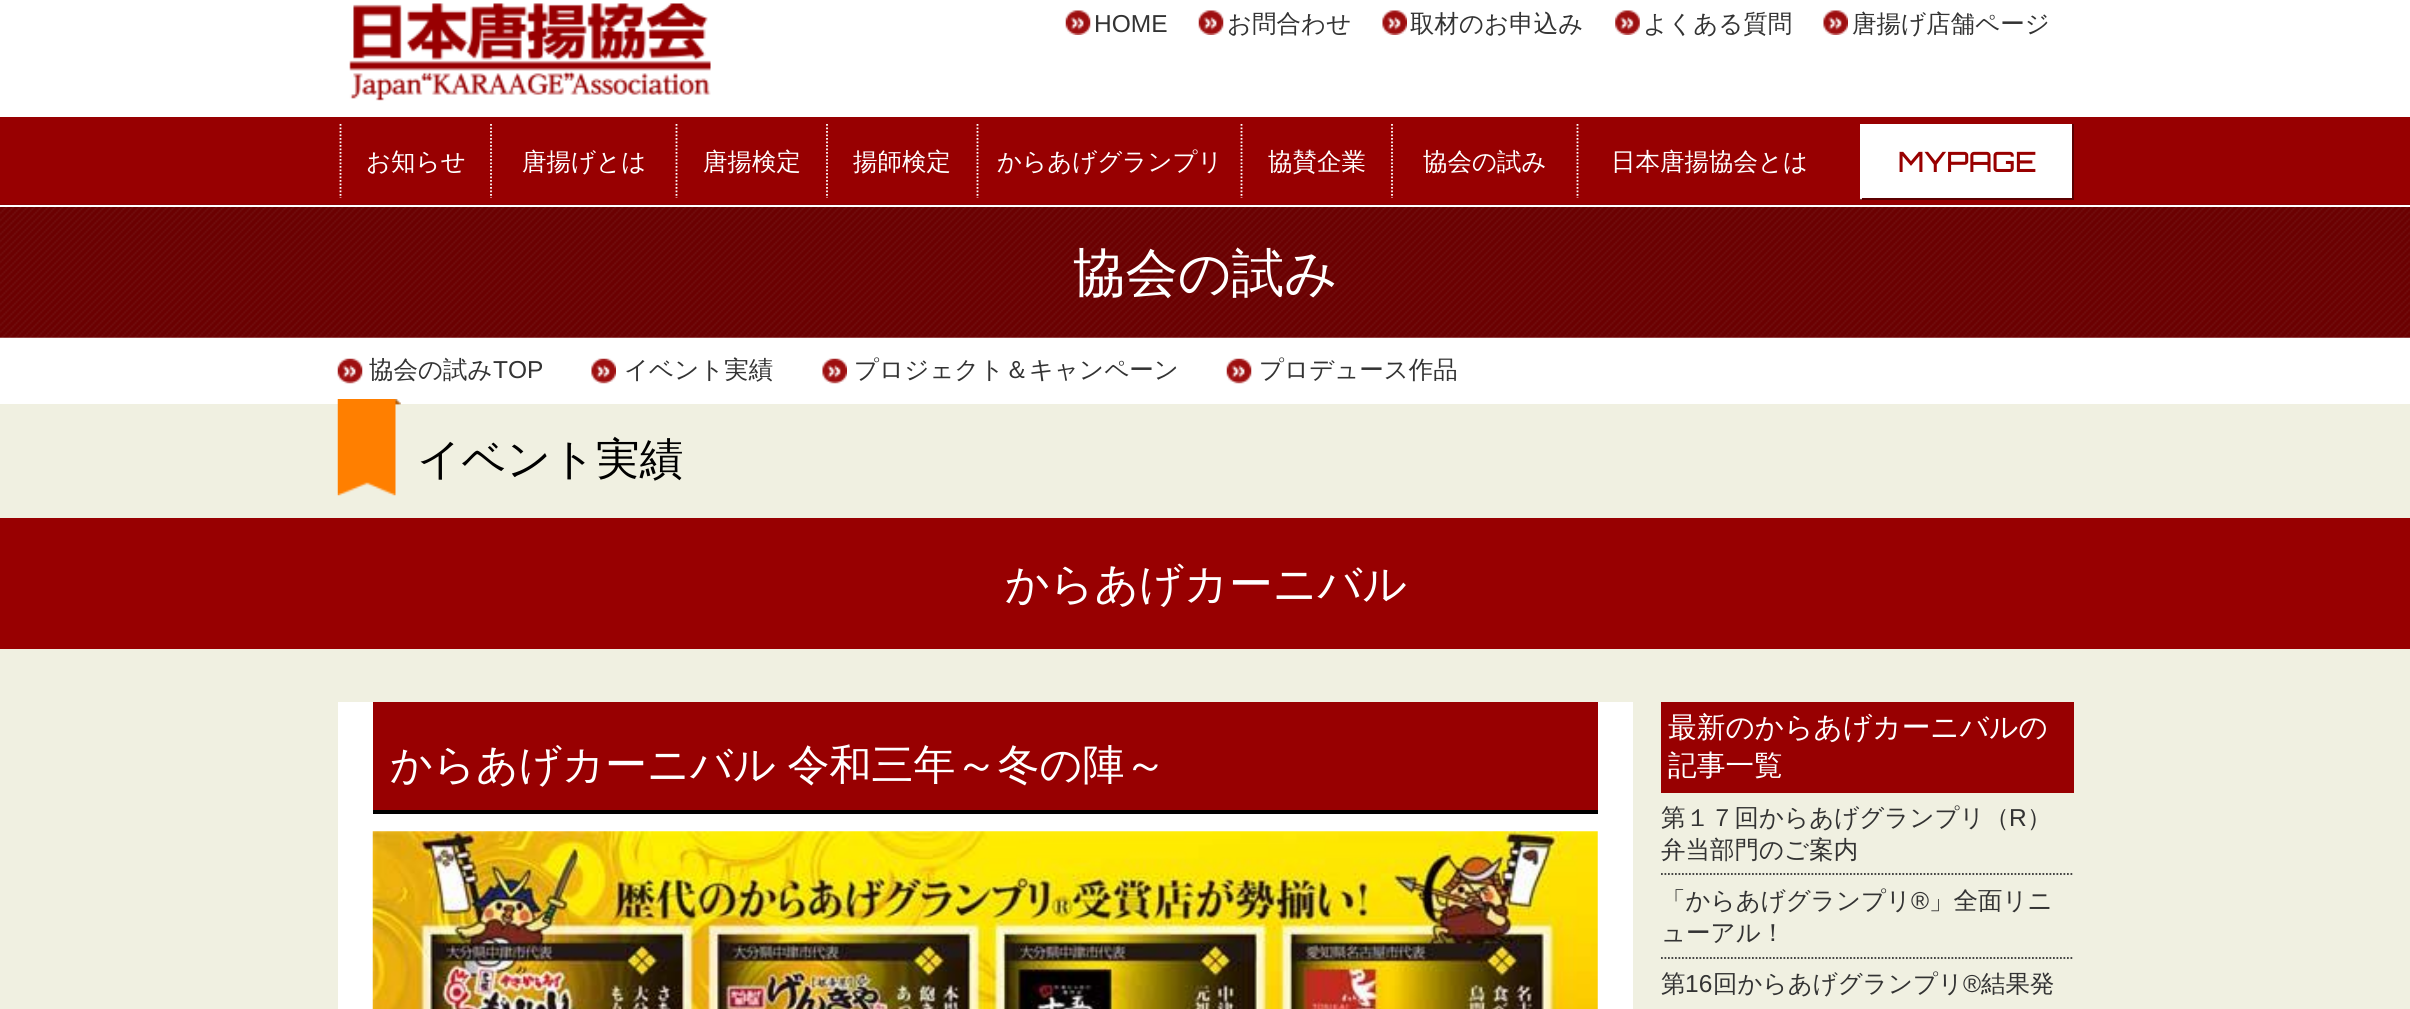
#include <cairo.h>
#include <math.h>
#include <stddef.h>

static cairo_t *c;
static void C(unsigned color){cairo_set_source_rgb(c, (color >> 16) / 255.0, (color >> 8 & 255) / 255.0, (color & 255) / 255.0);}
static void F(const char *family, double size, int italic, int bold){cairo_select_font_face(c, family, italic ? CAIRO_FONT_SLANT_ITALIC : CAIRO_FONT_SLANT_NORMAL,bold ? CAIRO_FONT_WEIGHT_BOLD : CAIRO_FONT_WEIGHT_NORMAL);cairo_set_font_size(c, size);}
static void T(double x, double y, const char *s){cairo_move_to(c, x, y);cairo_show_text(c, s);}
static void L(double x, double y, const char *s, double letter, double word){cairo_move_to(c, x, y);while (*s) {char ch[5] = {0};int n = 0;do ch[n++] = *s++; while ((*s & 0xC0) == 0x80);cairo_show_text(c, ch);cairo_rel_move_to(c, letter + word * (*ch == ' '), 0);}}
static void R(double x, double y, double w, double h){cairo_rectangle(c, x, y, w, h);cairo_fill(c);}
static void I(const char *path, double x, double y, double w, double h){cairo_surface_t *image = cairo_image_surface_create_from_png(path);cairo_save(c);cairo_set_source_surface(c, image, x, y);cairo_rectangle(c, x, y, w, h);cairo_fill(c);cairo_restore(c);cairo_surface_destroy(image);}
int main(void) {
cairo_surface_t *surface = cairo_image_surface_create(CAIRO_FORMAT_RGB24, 2410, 1009);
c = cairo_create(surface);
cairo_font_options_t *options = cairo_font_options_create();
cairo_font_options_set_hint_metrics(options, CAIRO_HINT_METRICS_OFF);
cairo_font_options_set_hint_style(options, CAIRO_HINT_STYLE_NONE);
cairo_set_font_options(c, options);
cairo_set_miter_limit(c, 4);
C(0xffffff);
cairo_paint(c);
I("1.png",349,3,362,98);
I("2.png",1065,10,26,25);
F("Liberation Sans",24.5,0,0);
C(0x333333);
T(1094,32,"HOME");
I("3.png",1198,10,26,25);
F("WenQuanYi Zen Hei Medium",24.5,0,0);
T(1227,32,"お問合わせ");
I("4.png",1382,10,25,25);
T(1410,32,"取材のお申込み");
I("5.png",1615,10,25,25);
T(1643,32,"よくある質問");
I("6.png",1823,10,25,25);
T(1852,32,"唐揚げ店舗ページ");
C(0x980001);
R(0,117,2410,88);
cairo_new_path(c);
cairo_move_to(c,340.5,124);
cairo_line_to(c,340.5,198);
C(0xffffff);
cairo_set_line_width(c,1.8);
cairo_set_dash(c,(double[]){1.75,1.75},2,0);
cairo_stroke(c);
T(366,170,"お知らせ");
cairo_new_path(c);
cairo_move_to(c,491,124);
cairo_line_to(c,491,198);
cairo_stroke(c);
T(522,170,"唐揚げとは");
cairo_new_path(c);
cairo_move_to(c,676.5,124);
cairo_line_to(c,676.5,198);
cairo_stroke(c);
T(703,170,"唐揚検定");
cairo_new_path(c);
cairo_move_to(c,827,124);
cairo_line_to(c,827,198);
cairo_stroke(c);
T(853,170,"揚師検定");
cairo_new_path(c);
cairo_move_to(c,977.5,124);
cairo_line_to(c,977.5,198);
cairo_stroke(c);
T(997,170,"からあげグランプリ");
cairo_new_path(c);
cairo_move_to(c,1241.5,124);
cairo_line_to(c,1241.5,198);
cairo_stroke(c);
T(1268,170,"協賛企業");
cairo_new_path(c);
cairo_move_to(c,1392,124);
cairo_line_to(c,1392,198);
cairo_stroke(c);
T(1423,170,"協会の試み");
cairo_new_path(c);
cairo_move_to(c,1577.5,124);
cairo_line_to(c,1577.5,198);
cairo_stroke(c);
T(1611,170,"日本唐揚協会とは");
R(1860,124,212,74);
C(0x5b0001);
R(2072,124,2,76);
R(1860,198,214,2);
cairo_new_path(c);
cairo_move_to(c,1861,124);
cairo_line_to(c,1861,199.5);
C(0xffffff);
cairo_stroke(c);
F("Orbitron Medium",28,0,0);
C(0x980000);
T(1898,172,"MYPAGE");
I("7.png",0,204,2410,134);
C(0xffffff);
R(0,205,2410,2);
F("WenQuanYi Zen Hei Medium",52.5,0,0);
T(1073,291,"協会の試み");
I("8.png",337,358,26,26);
F("WenQuanYi Zen Hei Medium",24.5,0,0);
C(0x333333);
T(369,378,"協会の試み");
F("Liberation Sans",24.5,0,0);
T(493,378,"TOP");
I("9.png",591,358,25,26);
F("WenQuanYi Zen Hei Medium",24.5,0,0);
T(624,378,"イベント実績");
I("9.png",822,358,25,26);
T(854,378,"プロジェクト＆キャンペーン");
I("8.png",1226,358,26,26);
T(1259,378,"プロデュース作品");
C(0xf0f0e1);
R(0,404,2410,605);
I("10.png",337,399,64,97);
F("WenQuanYi Zen Hei Medium",43.75,0,0);
C(0x000000);
T(417,474,"イベント実績");
C(0x980001);
R(0,518,2410,131);
C(0xffffff);
T(1005,599,"からあげカーニバル");
R(338,702,1295,307);
C(0x980001);
R(373,702,1225,108);
C(0x000000);
R(373,810,1225,4);
F("WenQuanYi Zen Hei Medium",42,0,0);
C(0xffffff);
L(390,779,"からあげカーニバル 令和三年～冬の陣～",0,-1);
I("11.png",372,831,1226,178);
C(0x980001);
R(1661,702,413,91);
F("WenQuanYi Zen Hei Medium",28.7,0,0);
C(0xffffff);
T(1668,737,"最新のからあげカーニバルの");
T(1668,775,"記事一覧");
cairo_new_path(c);
cairo_move_to(c,1661,874);
cairo_line_to(c,2074,874);
C(0x333333);
cairo_stroke(c);
F("WenQuanYi Zen Hei Medium",24.5,0,0);
T(1661,826,"第１７回からあげグランプリ（");
F("Liberation Sans",24.5,0,0);
T(2009,826,"R");
F("WenQuanYi Zen Hei Medium",24.5,0,0);
T(2027,826,"）");
T(1661,858,"弁当部門のご案内");
cairo_new_path(c);
cairo_move_to(c,1661,958);
cairo_line_to(c,2074,958);
cairo_stroke(c);
T(1661,909,"「からあげグランプリ");
F("Liberation Sans",24.5,0,0);
T(1911,909,"®");
F("WenQuanYi Zen Hei Medium",24.5,0,0);
T(1929,909,"」全面リニ");
T(1661,941,"ューアル！");
T(1661,992,"第");
F("Liberation Sans",24.5,0,0);
T(1685,992,"16");
F("WenQuanYi Zen Hei Medium",24.5,0,0);
T(1713,992,"回からあげグランプリ");
F("Liberation Sans",24.5,0,0);
T(1963,992,"®");
F("WenQuanYi Zen Hei Medium",24.5,0,0);
T(1981,992,"結果発");
cairo_surface_write_to_png(surface, "o.png");
cairo_font_options_destroy(options);
cairo_destroy(c);
cairo_surface_destroy(surface);
return 0;
}
